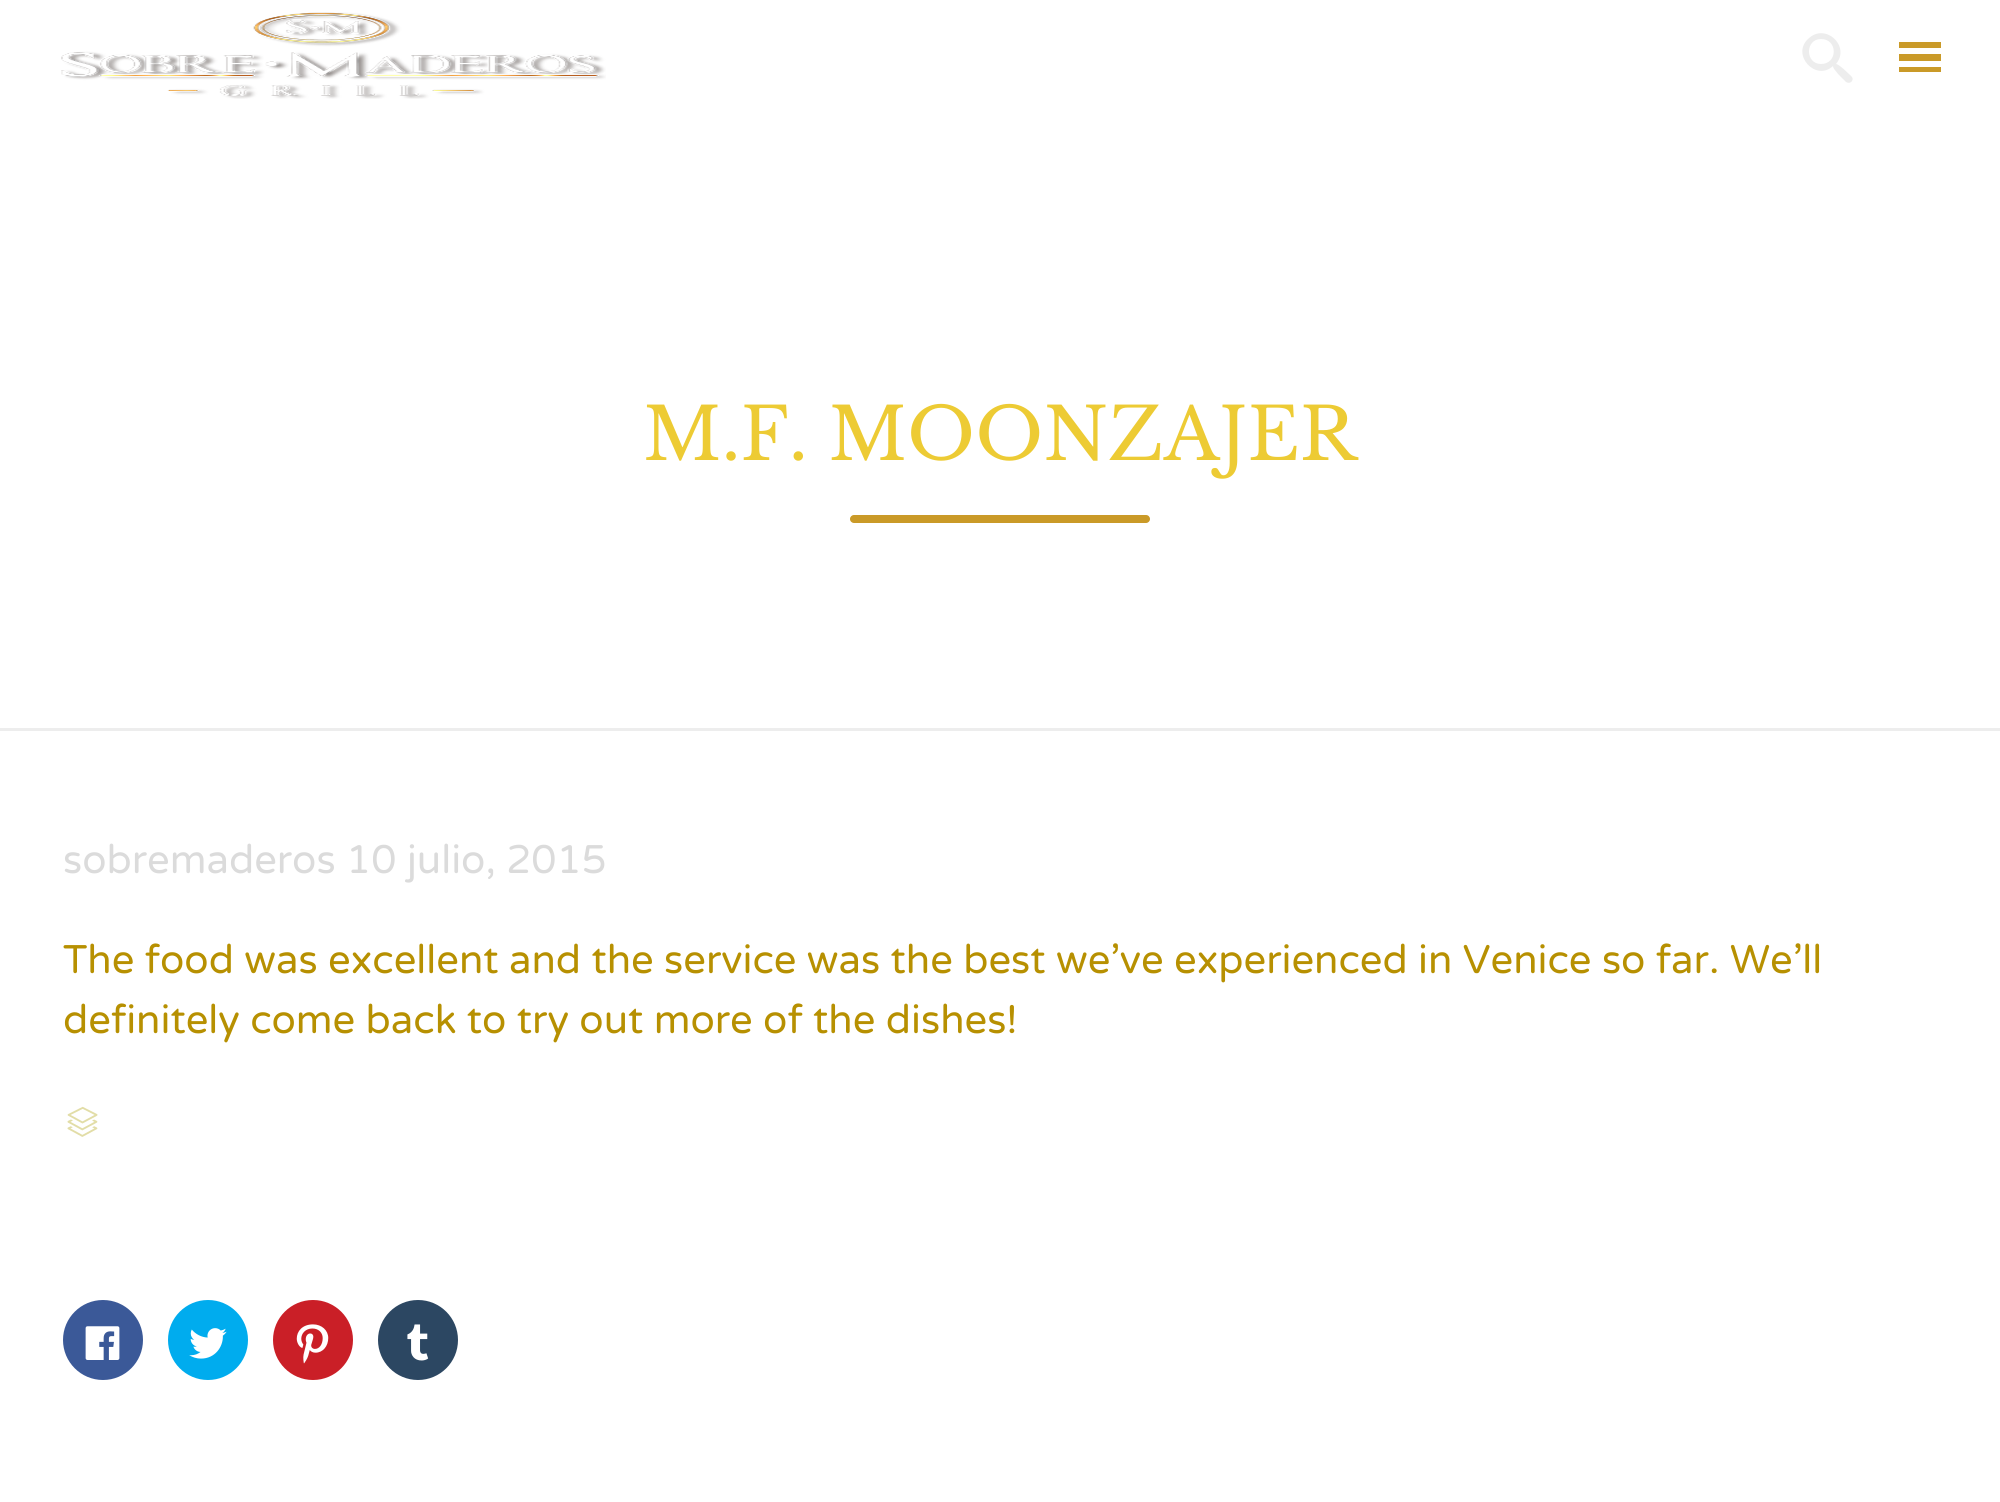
#include <cairo.h>
#include <math.h>
#include <stddef.h>

static cairo_t *c;
static void C(unsigned color){cairo_set_source_rgb(c, (color >> 16) / 255.0, (color >> 8 & 255) / 255.0, (color & 255) / 255.0);}
static void F(const char *family, double size, int italic, int bold){cairo_select_font_face(c, family, italic ? CAIRO_FONT_SLANT_ITALIC : CAIRO_FONT_SLANT_NORMAL,bold ? CAIRO_FONT_WEIGHT_BOLD : CAIRO_FONT_WEIGHT_NORMAL);cairo_set_font_size(c, size);}
static void T(double x, double y, const char *s){cairo_move_to(c, x, y);cairo_show_text(c, s);}
static void R(double x, double y, double w, double h){cairo_rectangle(c, x, y, w, h);cairo_fill(c);}
static void Q(double x, double y, double w, double h, double r){cairo_new_sub_path(c);cairo_arc(c, x + w - r, y + h - r, r, 0, M_PI / 2);cairo_arc(c, x + r, y + h - r, r, M_PI / 2, M_PI);cairo_arc(c, x + r, y + r, r, M_PI, 1.5 * M_PI);cairo_arc(c, x + w - r, y + r, r, 1.5 * M_PI, 2 * M_PI);cairo_close_path(c);}
static void I(const char *path, double x, double y, double w, double h){cairo_surface_t *image = cairo_image_surface_create_from_png(path);cairo_save(c);cairo_set_source_surface(c, image, x, y);cairo_rectangle(c, x, y, w, h);cairo_fill(c);cairo_restore(c);cairo_surface_destroy(image);}
int main(void) {
cairo_surface_t *surface = cairo_image_surface_create(CAIRO_FORMAT_RGB24, 2000, 1502);
c = cairo_create(surface);
cairo_font_options_t *options = cairo_font_options_create();
cairo_font_options_set_hint_metrics(options, CAIRO_HINT_METRICS_OFF);
cairo_font_options_set_hint_style(options, CAIRO_HINT_STYLE_NONE);
cairo_set_font_options(c, options);
cairo_set_miter_limit(c, 4);
C(0xffffff);
cairo_paint(c);
I("1.png",61,12,545,87);
C(0xededed);
cairo_new_path(c);
cairo_move_to(c,1851,76);
cairo_curve_to(c,1849,74,1839,64,1836,64);
cairo_curve_to(c,1851,46,1825,22,1808,39);
cairo_curve_to(c,1791,55,1816,82,1833,66);
cairo_curve_to(c,1833,69,1837,72,1838,74);
cairo_line_to(c,1846,82);
cairo_curve_to(c,1851,85,1855,79,1851,76);
cairo_close_path(c);
cairo_move_to(c,1821,64);
cairo_curve_to(c,1805,64,1805,39,1821,39);
cairo_curve_to(c,1838,39,1838,64,1821,64);
cairo_close_path(c);
cairo_fill(c);
C(0xca9a28);
cairo_new_path(c);
cairo_move_to(c,1899,72);
cairo_line_to(c,1941,72);
cairo_line_to(c,1941,67);
cairo_line_to(c,1899,67);
cairo_close_path(c);
cairo_move_to(c,1899,42);
cairo_line_to(c,1899,48);
cairo_line_to(c,1941,48);
cairo_line_to(c,1941,42);
cairo_close_path(c);
cairo_move_to(c,1899,61);
cairo_line_to(c,1941,61);
cairo_line_to(c,1941,54);
cairo_line_to(c,1899,54);
cairo_close_path(c);
cairo_fill(c);
C(0xededed);
R(0,728,2000,3);
F("Libre Baskerville",72,0,0);
C(0xedcb34);
T(643,460,"M.F. MOONZAJER");
C(0xca9a28);
Q(850,515,300,8,4);
cairo_fill(c);
F("Varela Round",40,0,0);
C(0xdbdbdb);
T(63,873,"sobremaderos 10 julio, 2015");
C(0xb79001);
T(63,973,"The food was excellent and the service was the best we’ve experienced in Venice so far. We’ll");
T(63,1033,"definitely come back to try out more of the dishes!");
I("2.png",67,1106,31,31);
C(0x3b5998);
cairo_arc(c,103,1340,40,0,2 * M_PI);
cairo_fill(c);
I("3.png",85,1326,35,34);
C(0x00acee);
cairo_arc(c,208,1340,40,0,2 * M_PI);
cairo_fill(c);
I("4.png",189,1328,38,31);
C(0xca1f27);
cairo_arc(c,313,1340,40,0,2 * M_PI);
cairo_fill(c);
I("5.png",296,1324,33,40);
C(0x2c4762);
cairo_arc(c,418,1340,40,0,2 * M_PI);
cairo_fill(c);
I("6.png",407,1324,22,37);
cairo_surface_write_to_png(surface, "o.png");
cairo_font_options_destroy(options);
cairo_destroy(c);
cairo_surface_destroy(surface);
return 0;
}
